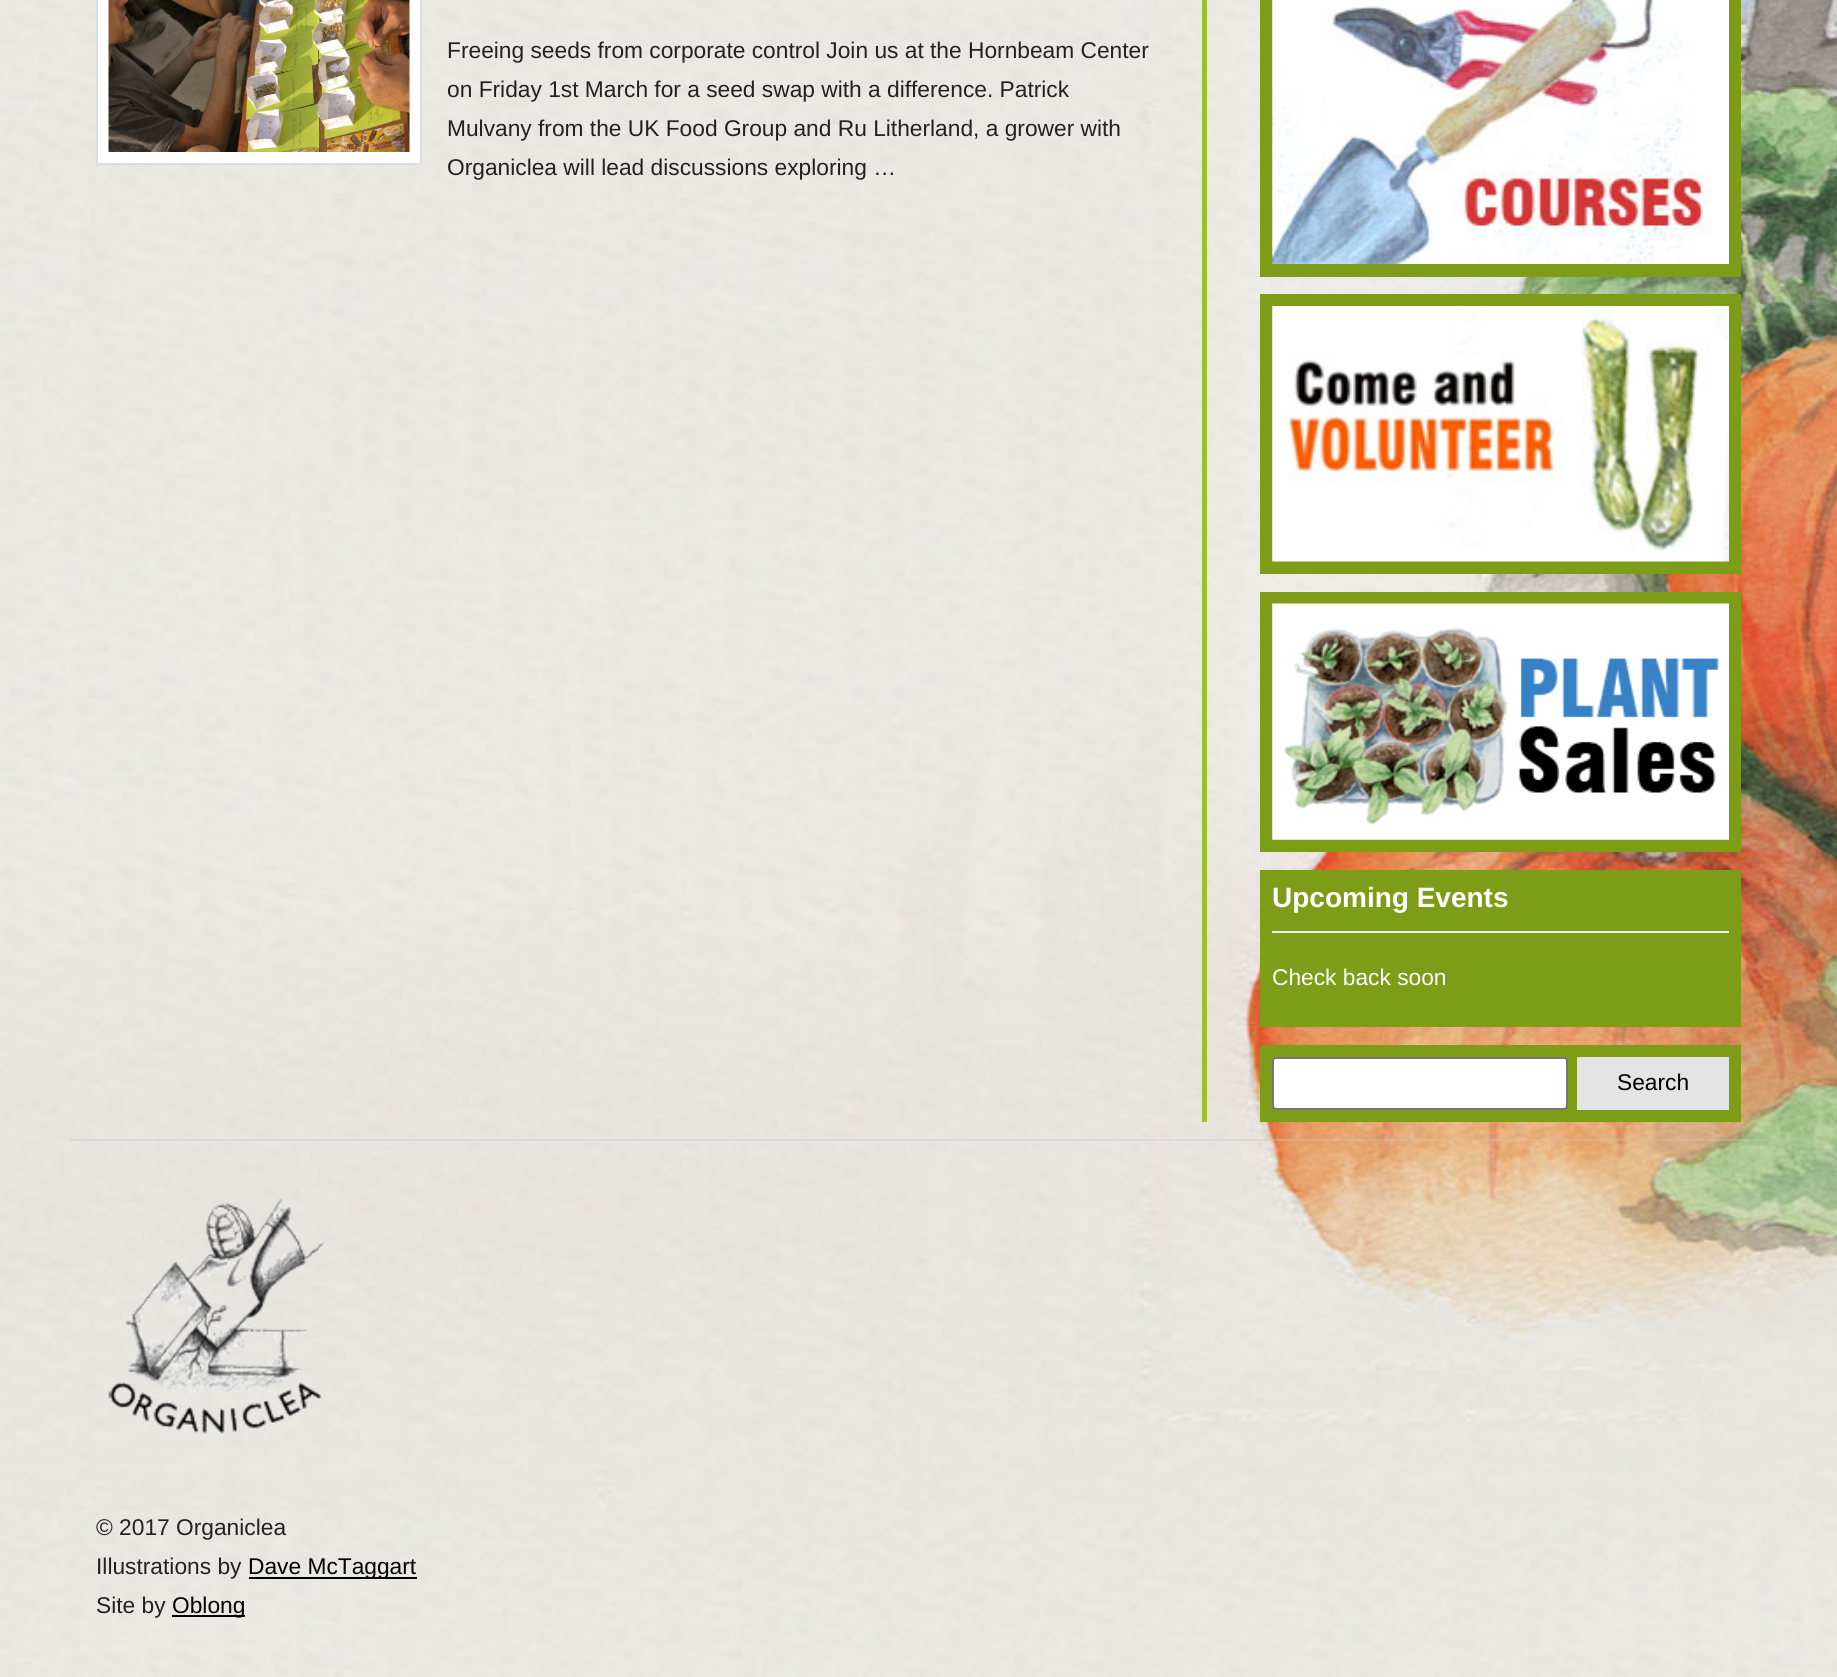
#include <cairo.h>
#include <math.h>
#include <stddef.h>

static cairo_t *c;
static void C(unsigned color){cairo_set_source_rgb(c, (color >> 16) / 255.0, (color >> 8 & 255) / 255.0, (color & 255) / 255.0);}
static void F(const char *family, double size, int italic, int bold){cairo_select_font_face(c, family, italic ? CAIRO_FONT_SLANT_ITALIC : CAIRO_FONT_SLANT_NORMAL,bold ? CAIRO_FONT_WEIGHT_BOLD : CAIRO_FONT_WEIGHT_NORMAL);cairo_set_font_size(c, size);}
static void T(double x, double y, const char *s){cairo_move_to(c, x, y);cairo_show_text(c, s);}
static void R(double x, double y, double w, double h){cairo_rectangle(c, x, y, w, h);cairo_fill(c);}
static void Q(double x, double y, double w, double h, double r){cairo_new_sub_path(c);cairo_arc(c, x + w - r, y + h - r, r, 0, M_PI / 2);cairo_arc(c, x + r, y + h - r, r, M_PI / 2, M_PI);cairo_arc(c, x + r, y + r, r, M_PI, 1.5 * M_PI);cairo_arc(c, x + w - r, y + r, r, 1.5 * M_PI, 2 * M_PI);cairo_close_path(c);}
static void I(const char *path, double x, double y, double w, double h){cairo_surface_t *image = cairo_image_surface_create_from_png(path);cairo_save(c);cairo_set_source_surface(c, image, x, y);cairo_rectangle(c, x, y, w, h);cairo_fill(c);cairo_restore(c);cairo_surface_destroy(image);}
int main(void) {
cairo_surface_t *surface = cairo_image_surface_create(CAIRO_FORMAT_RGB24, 1837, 1677);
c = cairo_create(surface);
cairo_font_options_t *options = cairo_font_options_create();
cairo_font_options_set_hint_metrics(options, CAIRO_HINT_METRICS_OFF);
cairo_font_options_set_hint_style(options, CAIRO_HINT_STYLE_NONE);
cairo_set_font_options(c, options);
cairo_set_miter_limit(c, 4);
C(0xffffff);
cairo_paint(c);
I("1.png",0,1510,1837,167);
I("2.png",0,0,1837,1510);
C(0xffffff);
cairo_rectangle(c,97,-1,324,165);
cairo_fill_preserve(c);
C(0xdddddd);
cairo_stroke(c);
I("3.png",108,0,302,152);
F("Liberation Sans",22.75,0,0);
C(0x222222);
T(447,58,"Freeing seeds from corporate control Join us at the Hornbeam Center");
T(447,97,"on Friday 1st March for a seed swap with a difference. Patrick");
T(447,136,"Mulvany from the UK Food Group and Ru Litherland, a grower with");
T(447,175,"Organiclea will lead discussions exploring …");
C(0x9ec02d);
R(1202,0,5,1122);
C(0x7d9c17);
R(1260,0,481,277);
I("4.png",1272,0,457,264);
R(1260,294,481,280);
I("5.png",1272,306,457,256);
R(1260,592,481,260);
I("6.png",1272,603,457,237);
R(1260,870,481,157);
C(0xeeeeee);
R(1272,931,457,2);
F("Liberation Sans",28,0,1);
C(0xffffff);
T(1272,907,"Upcoming Events");
F("Liberation Sans",22.75,0,0);
T(1272,985,"Check back soon");
C(0x7d9c17);
R(1260,1045,481,77);
C(0xffffff);
Q(1273,1058,294,51,3);
cairo_fill_preserve(c);
C(0x767676);
cairo_stroke(c);
C(0xe4e4e4);
R(1577,1057,152,53);
C(0x000000);
T(1617,1090,"Search");
cairo_set_source_rgba(c,0.78,0.78,0.78,0.36);
R(70,1139,1698,2);
I("7.png",108,1198,216,236);
C(0x222222);
T(96,1535,"© 2017 Organiclea");
T(96,1574,"Illustrations by");
C(0x000000);
R(249,1577,168,2);
T(248,1574,"Dave McTaggart");
C(0x222222);
T(96,1613,"Site by");
C(0x000000);
R(172,1615,73,2);
T(172,1613,"Oblong");
cairo_surface_write_to_png(surface, "o.png");
cairo_font_options_destroy(options);
cairo_destroy(c);
cairo_surface_destroy(surface);
return 0;
}
